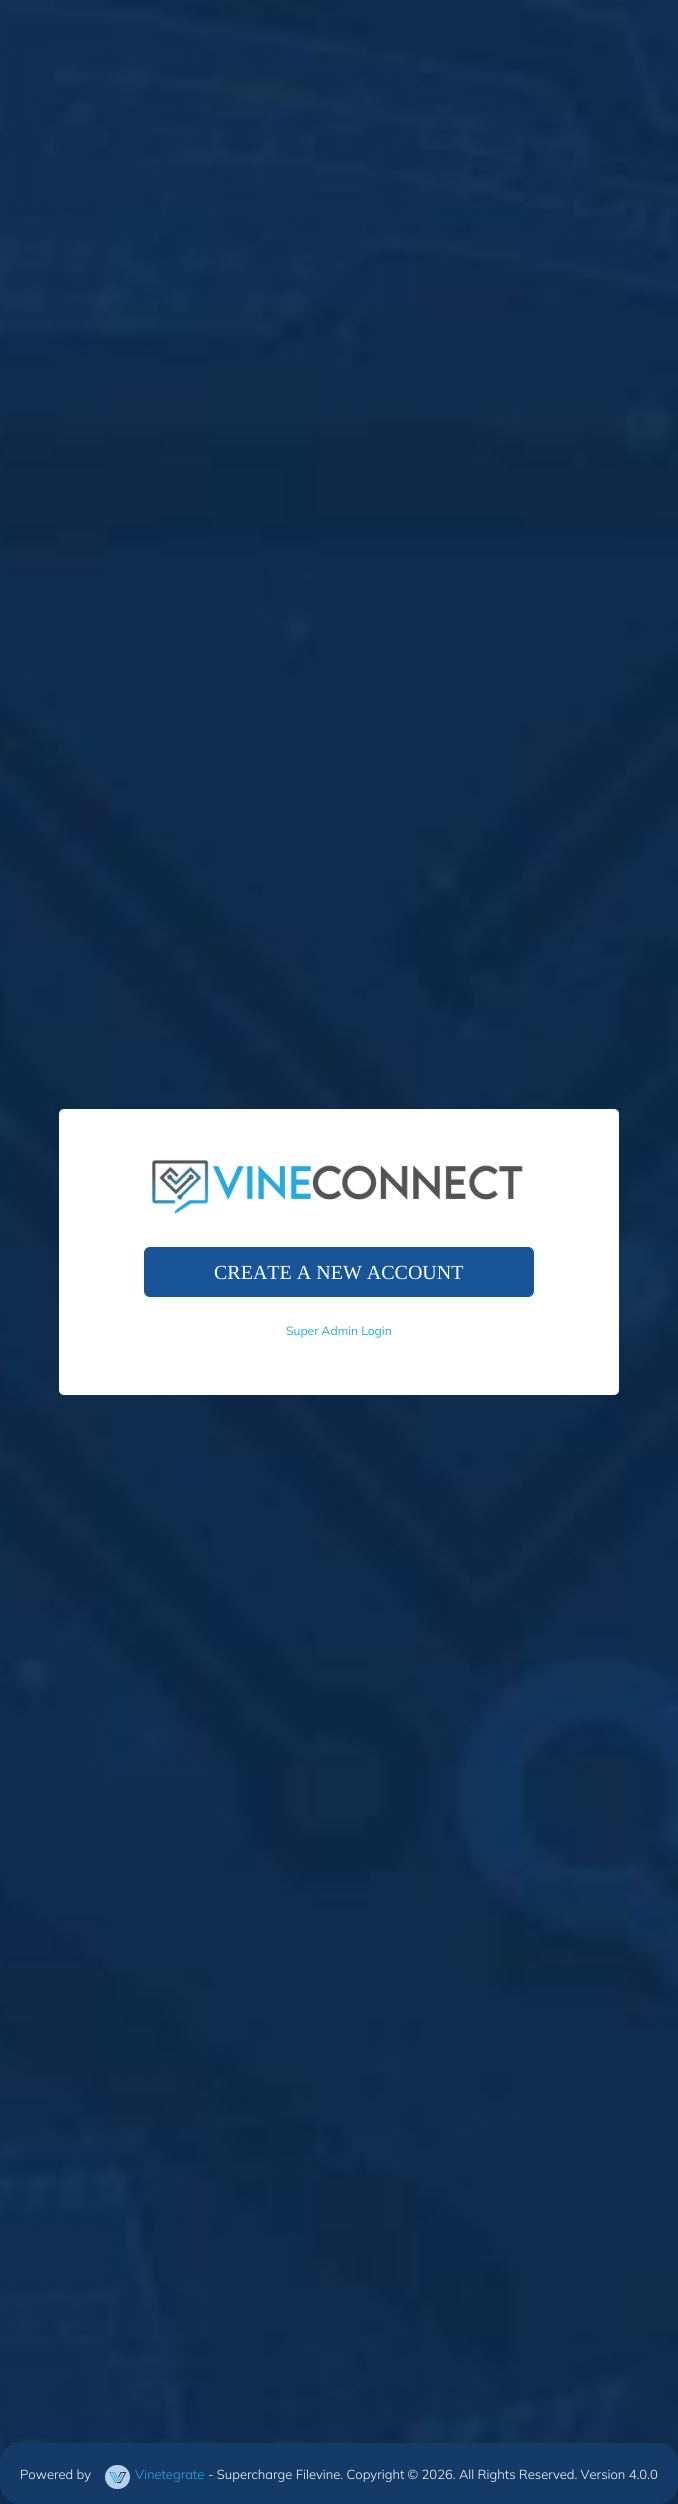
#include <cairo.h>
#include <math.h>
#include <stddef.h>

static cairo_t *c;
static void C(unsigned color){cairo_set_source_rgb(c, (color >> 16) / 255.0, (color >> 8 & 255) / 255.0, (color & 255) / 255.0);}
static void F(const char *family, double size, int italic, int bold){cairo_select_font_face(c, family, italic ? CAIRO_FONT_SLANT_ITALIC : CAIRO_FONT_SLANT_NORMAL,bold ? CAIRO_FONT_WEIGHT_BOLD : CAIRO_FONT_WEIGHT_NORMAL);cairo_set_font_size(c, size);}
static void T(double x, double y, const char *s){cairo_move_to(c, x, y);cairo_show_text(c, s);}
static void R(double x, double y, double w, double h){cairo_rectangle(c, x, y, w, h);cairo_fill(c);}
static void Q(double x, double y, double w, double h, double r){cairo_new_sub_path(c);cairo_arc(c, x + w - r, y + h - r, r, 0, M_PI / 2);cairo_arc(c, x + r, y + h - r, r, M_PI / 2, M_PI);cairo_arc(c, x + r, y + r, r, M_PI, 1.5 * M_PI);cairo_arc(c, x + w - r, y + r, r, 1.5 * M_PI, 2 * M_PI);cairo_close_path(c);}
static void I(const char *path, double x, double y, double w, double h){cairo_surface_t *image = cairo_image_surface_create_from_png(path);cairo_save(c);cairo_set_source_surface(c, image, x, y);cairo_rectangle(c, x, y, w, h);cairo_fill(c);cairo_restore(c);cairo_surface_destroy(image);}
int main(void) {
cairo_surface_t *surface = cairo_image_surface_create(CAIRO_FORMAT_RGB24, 678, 2504);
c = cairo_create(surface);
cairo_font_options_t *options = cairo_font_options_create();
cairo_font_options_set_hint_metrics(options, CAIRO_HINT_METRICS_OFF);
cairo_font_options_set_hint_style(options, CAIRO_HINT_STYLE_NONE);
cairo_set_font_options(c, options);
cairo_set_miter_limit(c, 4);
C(0x0f2c4d);
cairo_paint(c);
I("1.png",0,0,678,2490);
C(0xffffff);
Q(59,1109,560,286,5);
cairo_fill(c);
I("2.png",152,1159,371,55);
C(0x185598);
Q(144.5,1247.5,389,49,5.5);
cairo_fill_preserve(c);
C(0x185599);
cairo_set_line_width(c,1);
cairo_stroke(c);
F("Liberation Serif",20,0,0);
C(0xffffff);
T(214,1279,"CREATE A NEW ACCOUNT");
F("Mulish",12,0,0);
C(0x26a9e0);
T(286,1335,"Super Admin Login");
C(0x143b67);
Q(0,2443,678,61,20);
cairo_fill(c);
R(10,2443,658,1);
F("Mulish Light",13,0,0);
C(0xffffff);
T(20,2479,"Powered by");
C(0xb6d0ec);
Q(105,2465,25,24,12);
cairo_fill(c);
C(0x26a9e0);
T(135,2479,"Vinetegrate");
C(0xffffff);
T(208,2479,"- Supercharge Filevine. Copyright © 2026. All Rights Reserved. Version 4.0.0");
I("3.png",109,2472,18,12);
cairo_surface_write_to_png(surface, "o.png");
cairo_font_options_destroy(options);
cairo_destroy(c);
cairo_surface_destroy(surface);
return 0;
}
